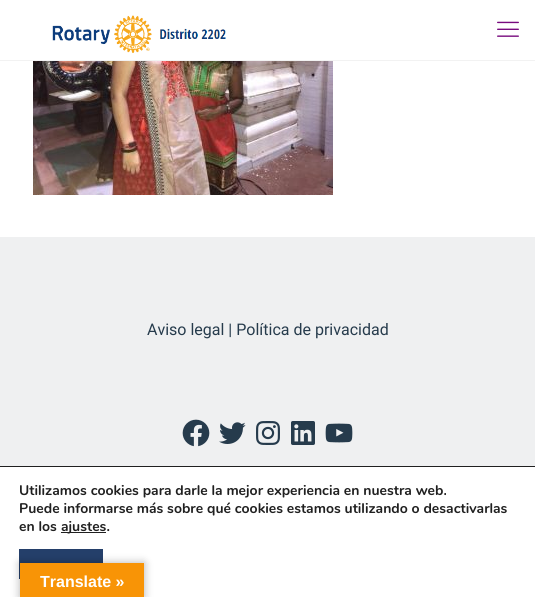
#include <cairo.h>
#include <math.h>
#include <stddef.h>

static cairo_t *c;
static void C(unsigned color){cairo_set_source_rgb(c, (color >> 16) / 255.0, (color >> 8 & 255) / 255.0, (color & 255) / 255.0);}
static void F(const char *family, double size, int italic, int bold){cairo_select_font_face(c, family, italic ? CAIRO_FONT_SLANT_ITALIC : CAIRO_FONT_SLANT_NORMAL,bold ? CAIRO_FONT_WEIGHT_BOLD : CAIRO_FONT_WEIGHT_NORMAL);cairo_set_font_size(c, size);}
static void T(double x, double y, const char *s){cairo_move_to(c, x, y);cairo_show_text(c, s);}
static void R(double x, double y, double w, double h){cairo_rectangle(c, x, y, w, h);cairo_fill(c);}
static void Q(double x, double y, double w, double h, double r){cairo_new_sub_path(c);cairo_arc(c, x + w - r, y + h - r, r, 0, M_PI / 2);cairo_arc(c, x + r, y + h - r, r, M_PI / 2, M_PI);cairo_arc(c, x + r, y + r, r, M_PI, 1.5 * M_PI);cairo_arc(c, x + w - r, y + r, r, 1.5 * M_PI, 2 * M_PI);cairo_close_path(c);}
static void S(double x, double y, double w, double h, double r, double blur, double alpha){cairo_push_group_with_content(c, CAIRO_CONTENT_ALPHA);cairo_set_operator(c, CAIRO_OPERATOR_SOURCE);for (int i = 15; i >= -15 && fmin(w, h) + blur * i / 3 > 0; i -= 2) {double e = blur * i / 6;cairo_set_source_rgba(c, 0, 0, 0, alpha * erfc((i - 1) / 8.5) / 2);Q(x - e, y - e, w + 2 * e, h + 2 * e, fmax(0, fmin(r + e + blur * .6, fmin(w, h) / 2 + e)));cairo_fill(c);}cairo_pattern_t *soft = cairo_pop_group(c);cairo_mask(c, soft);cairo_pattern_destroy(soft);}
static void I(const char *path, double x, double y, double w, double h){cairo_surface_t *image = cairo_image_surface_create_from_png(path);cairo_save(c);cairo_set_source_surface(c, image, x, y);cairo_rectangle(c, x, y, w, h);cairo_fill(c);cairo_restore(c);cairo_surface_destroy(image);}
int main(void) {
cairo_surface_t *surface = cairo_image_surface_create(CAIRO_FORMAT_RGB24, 535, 597);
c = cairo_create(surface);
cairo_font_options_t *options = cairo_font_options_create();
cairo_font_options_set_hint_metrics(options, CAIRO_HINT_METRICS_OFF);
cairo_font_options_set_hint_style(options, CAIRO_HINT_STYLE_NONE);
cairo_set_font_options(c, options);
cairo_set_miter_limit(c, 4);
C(0xffffff);
cairo_paint(c);
C(0xf2f2f2);
R(0,60,535,1);
I("1.png",52,15,174,38);
I("2.png",497,21,22,16);
I("3.png",33,61,300,134);
C(0xeff0f1);
R(0,237,535,229);
F("Roboto",16,0,0);
C(0x263b4c);
T(147,335,"Aviso legal | Política de privacidad");
I("4.png",182,419,28,28);
I("5.png",219,422,27,22);
I("6.png",256,421,24,24);
I("7.png",291,421,24,24);
I("8.png",325,423,28,20);
C(0x202020);
R(0,466,535,1);
F("Nunito",14,0,1);
T(19,495,"Utilizamos cookies para darle la mejor experiencia en nuestra web.");
T(19,513,"Puede informarse más sobre qué cookies estamos utilizando o desactivarlas");
T(19,531,"en los");
R(61,532,45,1);
T(61,531,"ajustes.");
C(0x243f6a);
R(19,549,84,30);
C(0x000000);
S(20,563,124,34,0,4.5,.3);
C(0xf89406);
R(20,563,124,34);
F("Liberation Sans",16,0,1);
C(0xffffff);
T(40,587,"Translate »");
cairo_surface_write_to_png(surface, "o.png");
cairo_font_options_destroy(options);
cairo_destroy(c);
cairo_surface_destroy(surface);
return 0;
}
